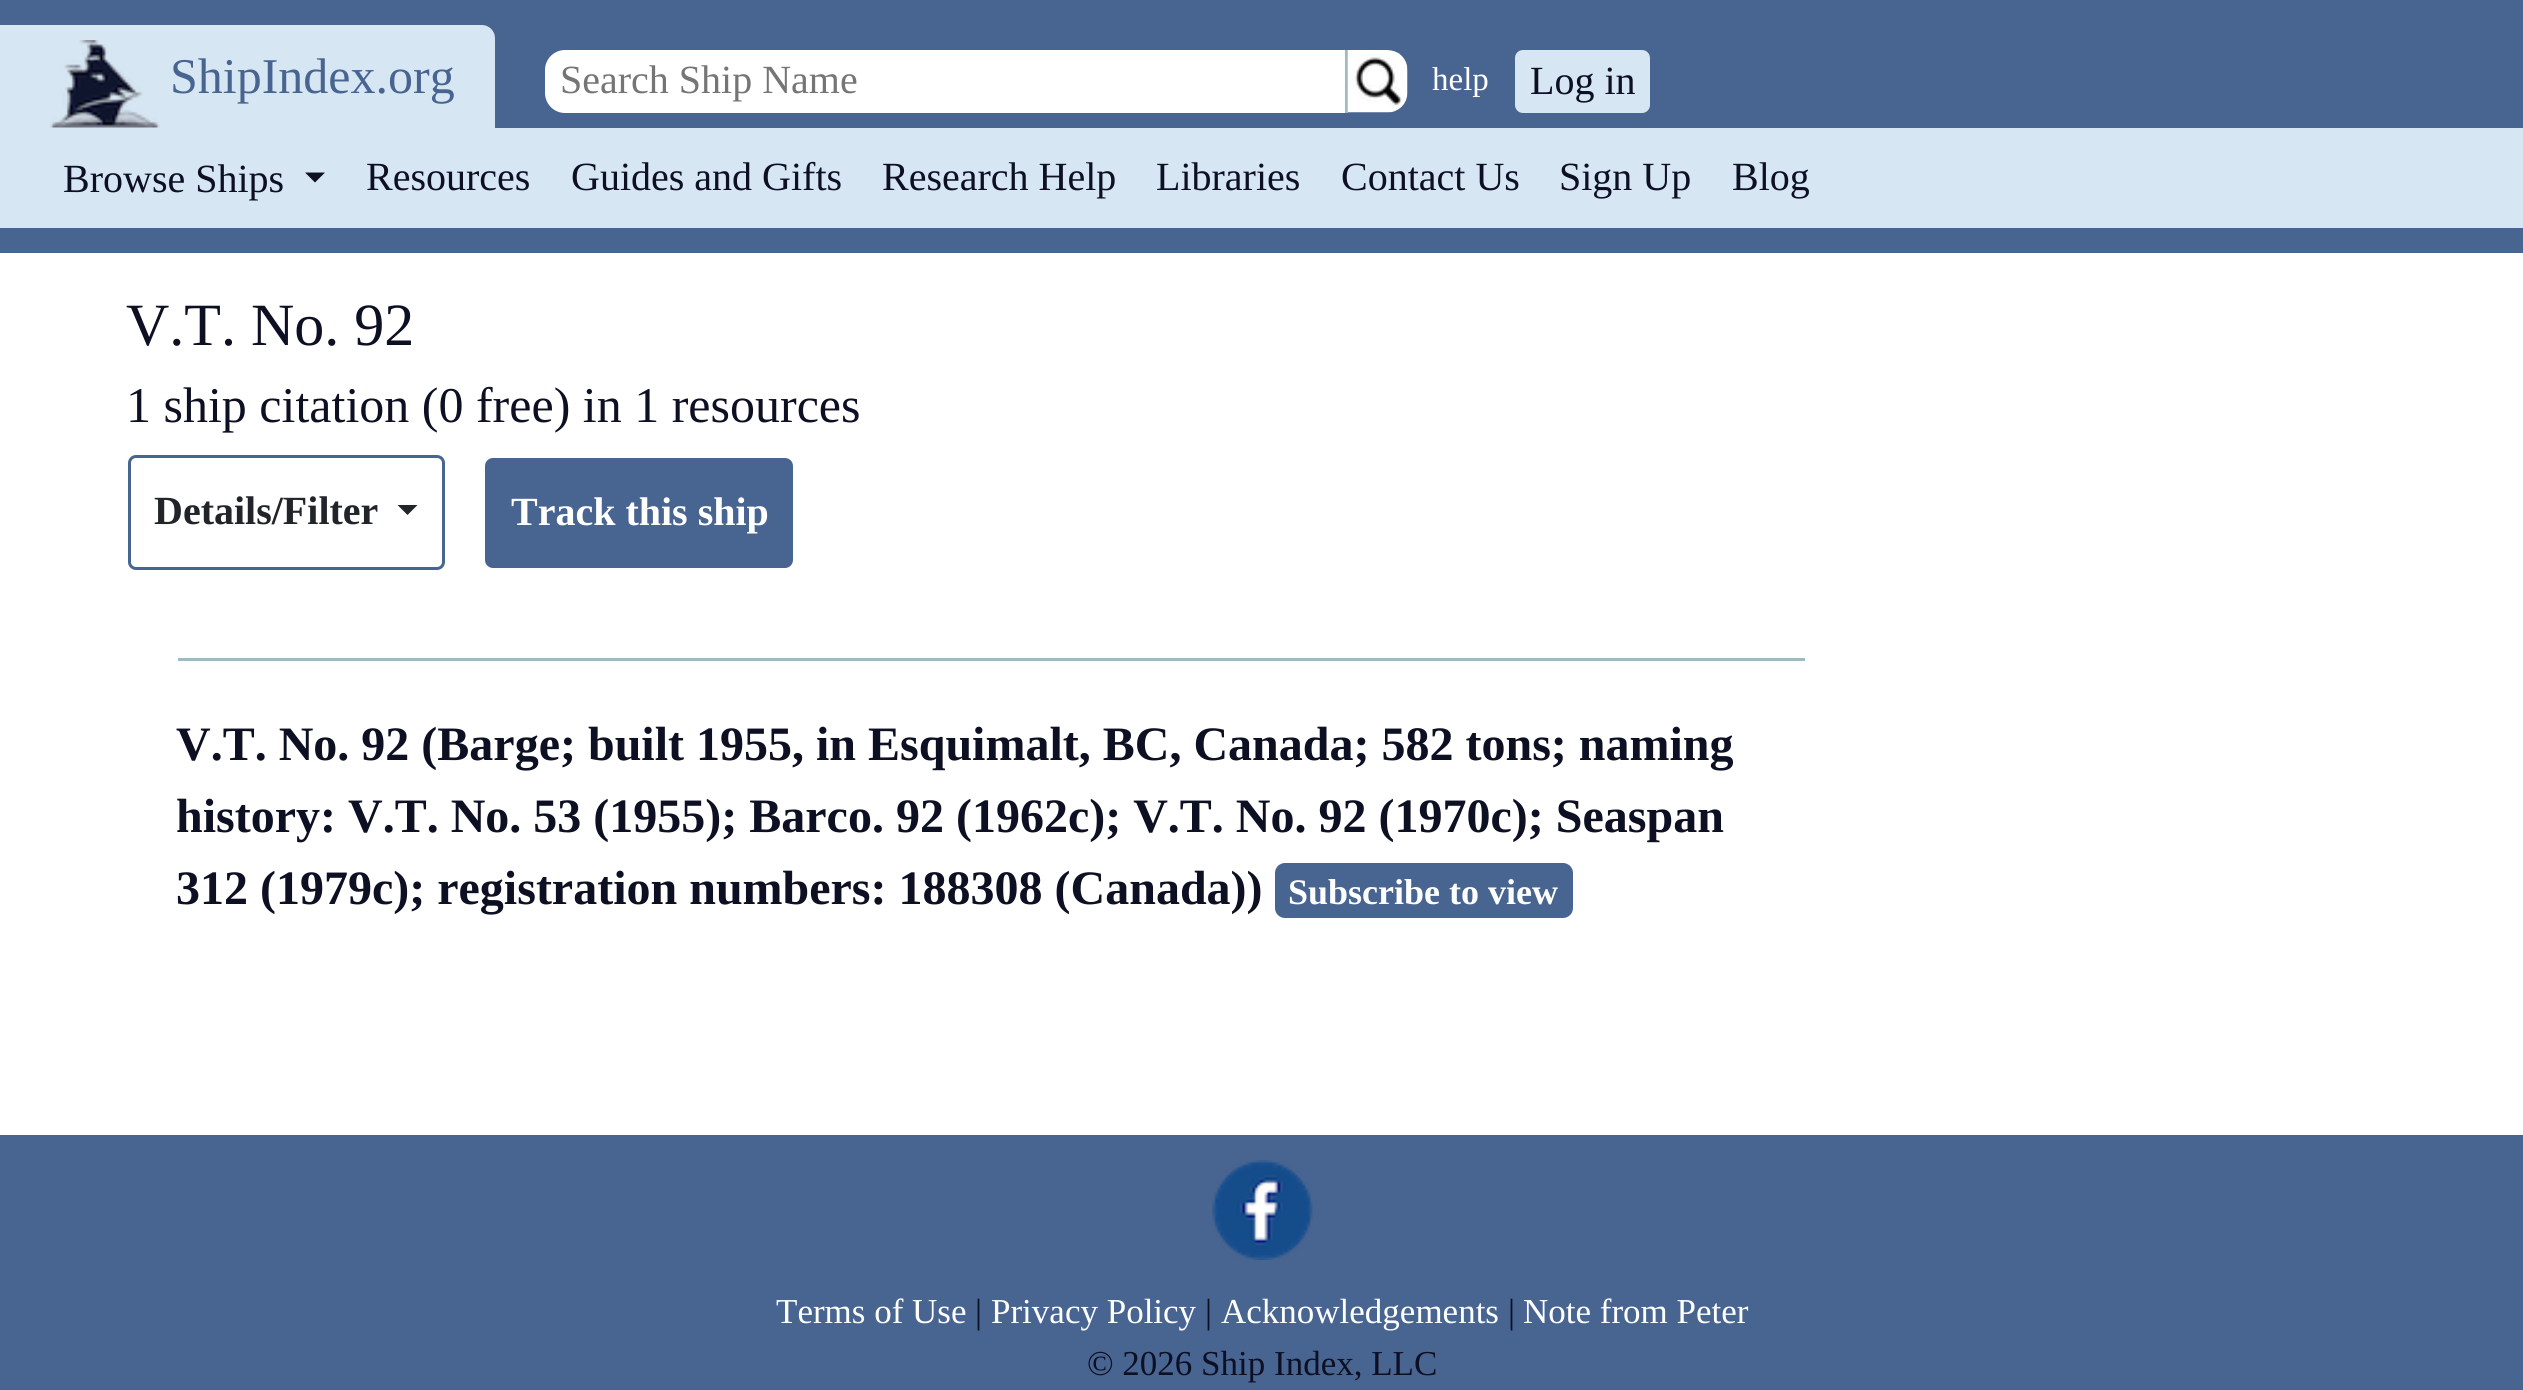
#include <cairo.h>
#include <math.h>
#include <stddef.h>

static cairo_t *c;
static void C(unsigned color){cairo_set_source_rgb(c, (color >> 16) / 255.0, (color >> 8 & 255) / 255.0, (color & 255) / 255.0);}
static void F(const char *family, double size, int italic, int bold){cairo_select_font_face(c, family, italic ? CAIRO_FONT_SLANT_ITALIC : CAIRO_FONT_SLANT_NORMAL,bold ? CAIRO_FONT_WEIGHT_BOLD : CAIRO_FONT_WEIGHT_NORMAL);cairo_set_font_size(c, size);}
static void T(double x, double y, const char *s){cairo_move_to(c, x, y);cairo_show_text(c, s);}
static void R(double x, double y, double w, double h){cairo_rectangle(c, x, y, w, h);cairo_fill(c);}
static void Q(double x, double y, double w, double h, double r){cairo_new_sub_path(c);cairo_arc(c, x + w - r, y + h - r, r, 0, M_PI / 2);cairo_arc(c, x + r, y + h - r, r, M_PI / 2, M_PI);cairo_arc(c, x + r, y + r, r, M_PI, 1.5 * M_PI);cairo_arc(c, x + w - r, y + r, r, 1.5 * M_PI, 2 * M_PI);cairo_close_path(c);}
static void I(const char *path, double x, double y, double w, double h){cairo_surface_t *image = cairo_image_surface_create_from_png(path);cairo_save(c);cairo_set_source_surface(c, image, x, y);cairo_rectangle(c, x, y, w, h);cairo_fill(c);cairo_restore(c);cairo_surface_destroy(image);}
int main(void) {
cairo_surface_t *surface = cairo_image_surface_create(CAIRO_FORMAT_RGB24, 2523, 1390);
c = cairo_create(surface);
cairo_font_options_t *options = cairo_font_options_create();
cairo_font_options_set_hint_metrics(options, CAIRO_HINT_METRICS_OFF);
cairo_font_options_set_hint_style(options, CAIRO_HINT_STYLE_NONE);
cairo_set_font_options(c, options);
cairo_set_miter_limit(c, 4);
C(0xffffff);
cairo_paint(c);
C(0x486491);
R(0,0,2523,253);
C(0xd6e6f3);
cairo_new_path(c);
cairo_move_to(c,0,25);
cairo_line_to(c,482,25);
cairo_curve_to(c,489,25,495,31,495,38);
cairo_line_to(c,495,128);
cairo_line_to(c,0,128);
cairo_close_path(c);
cairo_fill(c);
I("1.png",50,40,110,88);
F("Liberation Serif",50,0,0);
C(0x486491);
T(170,93,"ShipIndex.org");
C(0xffffff);
cairo_new_path(c);
cairo_move_to(c,565,50);
cairo_line_to(c,1345,50);
cairo_line_to(c,1345,113);
cairo_line_to(c,565,113);
cairo_curve_to(c,554,113,545,104,545,93);
cairo_line_to(c,545,70);
cairo_curve_to(c,545,59,554,50,565,50);
cairo_close_path(c);
cairo_fill(c);
F("Liberation Serif",40,0,0);
C(0x757575);
T(560,93,"Search Ship Name");
C(0xa1b9c0);
R(1345,50,3,63);
I("2.png",1347,50,61,63);
F("Liberation Serif",33,0,0);
C(0xffffff);
T(1432,90,"help");
C(0xd6e6f3);
Q(1515,50,135,63,8);
cairo_fill(c);
F("Liberation Serif",40,0,0);
C(0x0d0f23);
T(1530,94,"Log in");
C(0xd6e6f3);
R(0,128,2523,100);
C(0x0d0f23);
T(63,192,"Browse Ships");
cairo_new_path(c);
cairo_move_to(c,305,172.5);
cairo_line_to(c,325,172.5);
cairo_line_to(c,315,182.5);
cairo_close_path(c);
cairo_fill(c);
T(366,190,"Resources");
T(571,190,"Guides and Gifts");
T(882,190,"Research Help");
T(1156,190,"Libraries");
T(1341,190,"Contact Us");
T(1559,190,"Sign Up");
T(1732,190,"Blog");
F("Liberation Serif",60,0,0);
T(126,345,"V.T. No. 92");
F("Liberation Serif",50,0,0);
T(126,422,"1 ship citation (0 free) in 1 resources");
Q(129.5,456.5,314,112,6.5);
C(0x486491);
cairo_set_line_width(c,3);
cairo_stroke(c);
F("Liberation Serif",40,0,1);
C(0x212529);
T(154,524,"Details/Filter");
cairo_new_path(c);
cairo_move_to(c,397.5,505);
cairo_line_to(c,417.5,505);
cairo_line_to(c,407.5,515);
cairo_close_path(c);
cairo_fill(c);
C(0x486491);
Q(485,458,308,110,8);
cairo_fill(c);
C(0xffffff);
T(511,525,"Track this ship");
C(0xa1b9c0);
R(178,658,1627,3);
F("Liberation Serif",48,0,1);
C(0x0d0f23);
T(176,760,"V.T. No. 92 (Barge; built 1955, in Esquimalt, BC, Canada; 582 tons; naming");
T(176,832,"history: V.T. No. 53 (1955); Barco. 92 (1962c); V.T. No. 92 (1970c); Seaspan");
T(176,904,"312 (1979c); registration numbers: 188308 (Canada))");
C(0x486491);
Q(1275,863,298,55,10);
cairo_fill(c);
F("Liberation Serif",36,0,1);
C(0xffffff);
T(1288,904,"Subscribe to view");
C(0x486491);
R(0,1135,2523,255);
I("3.png",1212,1160,101,100);
F("Liberation Serif",35,0,0);
C(0xffffff);
T(776,1323,"Terms of Use");
C(0x0d0f23);
T(975,1323,"|");
C(0xffffff);
T(991,1323,"Privacy Policy");
C(0x0d0f23);
T(1205,1323,"|");
C(0xffffff);
T(1221,1323,"Acknowledgements");
C(0x0d0f23);
T(1508,1323,"|");
C(0xffffff);
T(1523,1323,"Note from Peter");
C(0x0d0f23);
T(1087,1375,"© 2026 Ship Index, LLC");
cairo_surface_write_to_png(surface, "o.png");
cairo_font_options_destroy(options);
cairo_destroy(c);
cairo_surface_destroy(surface);
return 0;
}
